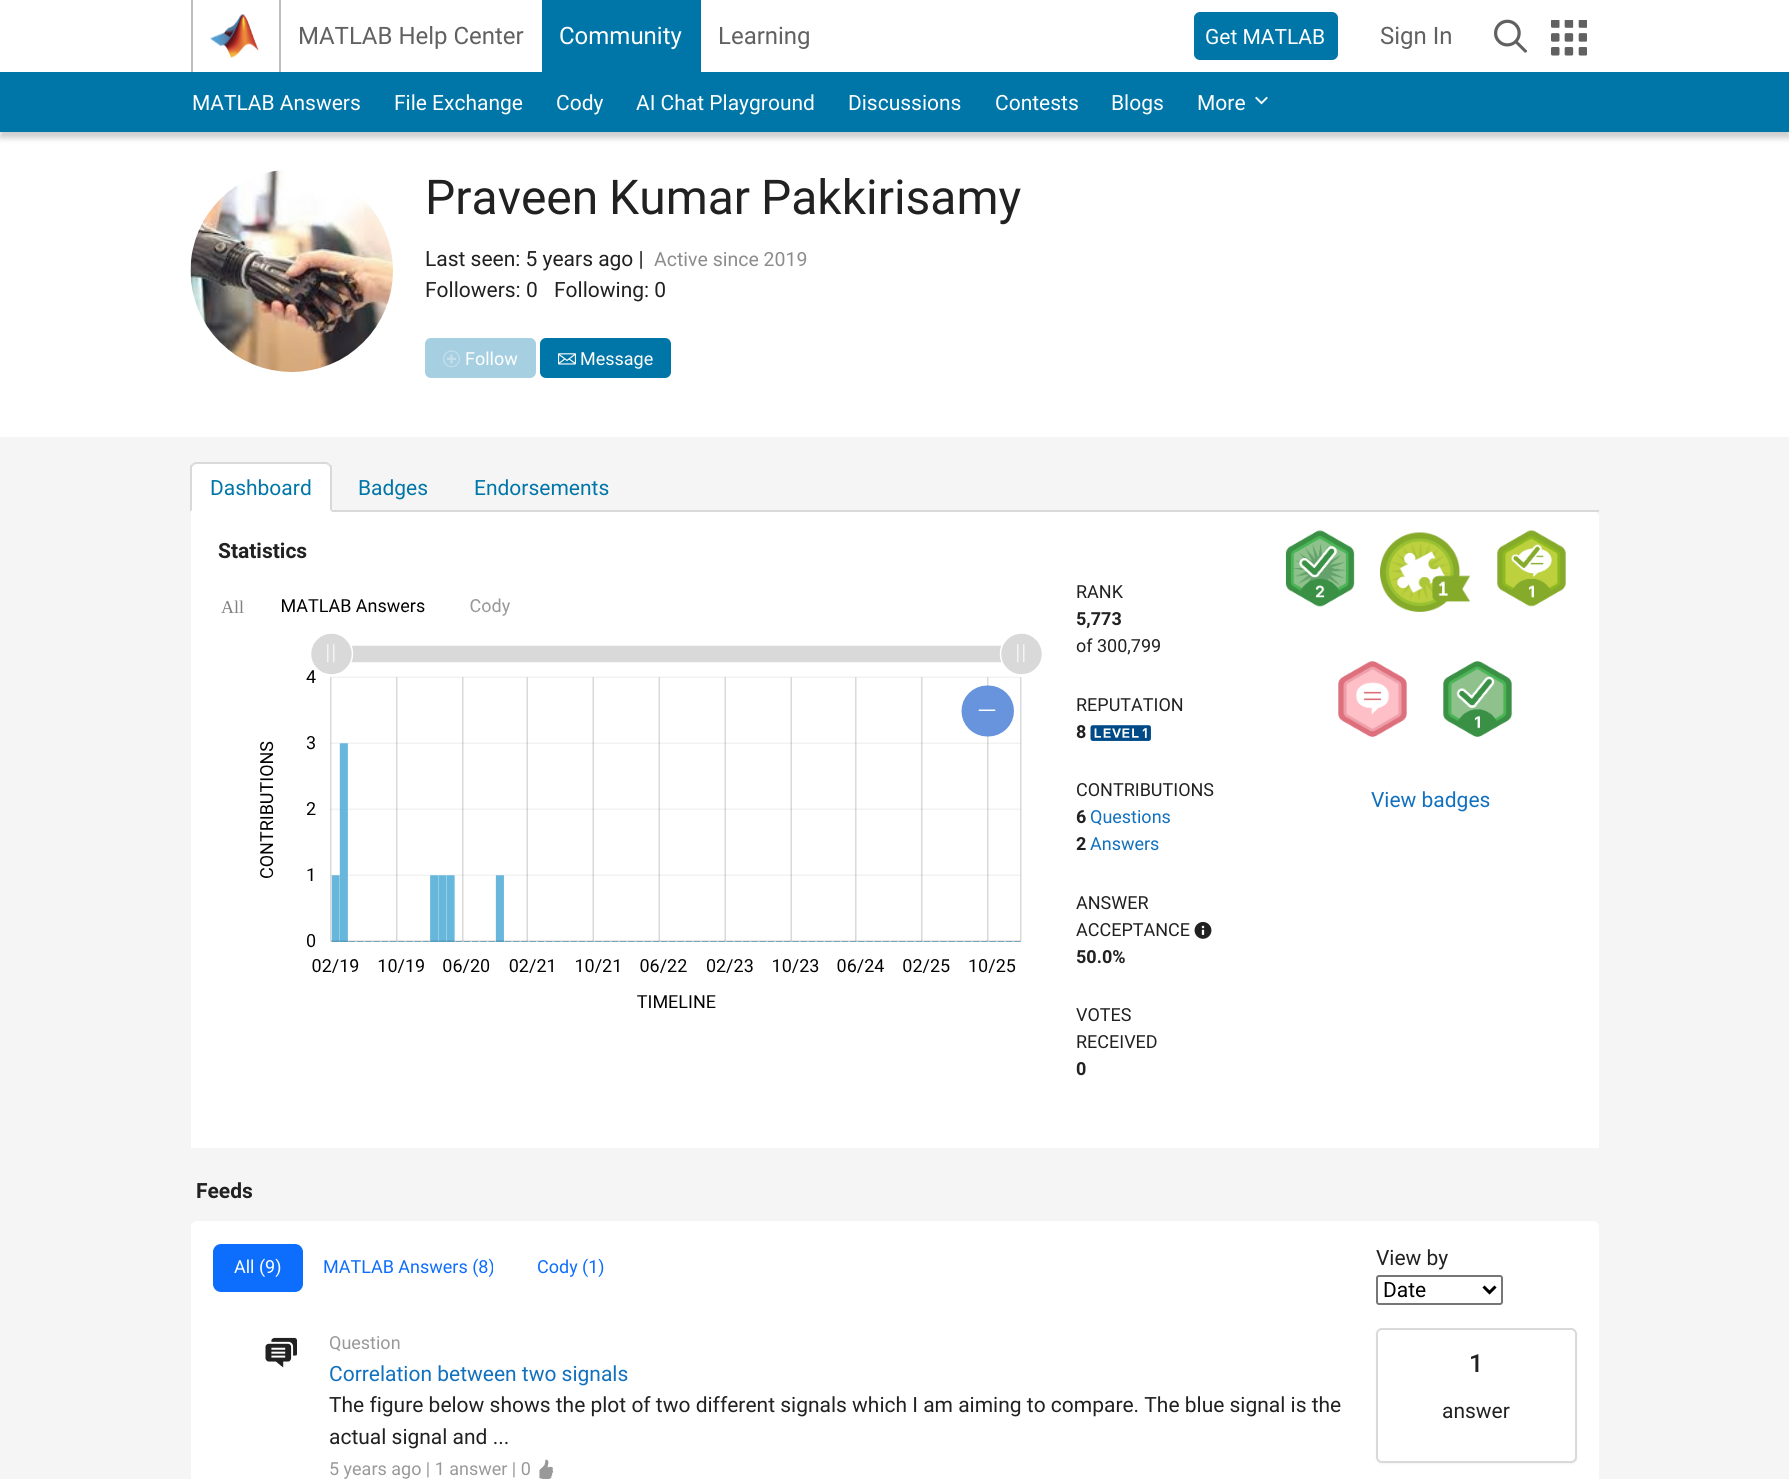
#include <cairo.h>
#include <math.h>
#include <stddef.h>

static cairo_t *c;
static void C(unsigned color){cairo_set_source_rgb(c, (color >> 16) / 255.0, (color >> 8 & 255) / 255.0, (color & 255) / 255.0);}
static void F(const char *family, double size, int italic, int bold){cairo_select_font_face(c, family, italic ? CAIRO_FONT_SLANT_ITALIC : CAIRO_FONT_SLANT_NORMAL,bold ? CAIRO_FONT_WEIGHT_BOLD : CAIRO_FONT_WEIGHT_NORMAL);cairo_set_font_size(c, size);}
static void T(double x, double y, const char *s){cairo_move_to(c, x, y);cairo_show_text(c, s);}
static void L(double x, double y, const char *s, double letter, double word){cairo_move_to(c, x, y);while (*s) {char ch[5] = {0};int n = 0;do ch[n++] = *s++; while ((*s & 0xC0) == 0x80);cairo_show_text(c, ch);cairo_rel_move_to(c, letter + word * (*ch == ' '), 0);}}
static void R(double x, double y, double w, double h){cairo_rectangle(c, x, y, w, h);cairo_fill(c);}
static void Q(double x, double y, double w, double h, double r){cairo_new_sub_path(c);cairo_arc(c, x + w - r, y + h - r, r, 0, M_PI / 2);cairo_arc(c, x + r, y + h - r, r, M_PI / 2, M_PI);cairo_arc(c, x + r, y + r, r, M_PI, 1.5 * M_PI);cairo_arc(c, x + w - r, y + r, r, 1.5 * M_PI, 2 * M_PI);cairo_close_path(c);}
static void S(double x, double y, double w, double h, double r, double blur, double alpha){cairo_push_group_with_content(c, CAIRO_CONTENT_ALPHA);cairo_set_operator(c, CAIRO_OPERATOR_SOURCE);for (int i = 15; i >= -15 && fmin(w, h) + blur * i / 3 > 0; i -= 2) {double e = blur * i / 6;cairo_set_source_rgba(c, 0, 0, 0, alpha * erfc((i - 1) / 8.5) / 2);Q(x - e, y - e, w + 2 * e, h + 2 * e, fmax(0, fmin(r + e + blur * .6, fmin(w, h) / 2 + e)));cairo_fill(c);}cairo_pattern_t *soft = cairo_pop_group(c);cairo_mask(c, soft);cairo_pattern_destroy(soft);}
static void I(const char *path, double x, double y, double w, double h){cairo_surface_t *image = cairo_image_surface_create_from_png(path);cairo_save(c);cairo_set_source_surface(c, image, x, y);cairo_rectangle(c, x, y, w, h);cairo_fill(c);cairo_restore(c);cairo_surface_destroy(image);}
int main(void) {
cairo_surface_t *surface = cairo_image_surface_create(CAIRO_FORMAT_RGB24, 1789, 1479);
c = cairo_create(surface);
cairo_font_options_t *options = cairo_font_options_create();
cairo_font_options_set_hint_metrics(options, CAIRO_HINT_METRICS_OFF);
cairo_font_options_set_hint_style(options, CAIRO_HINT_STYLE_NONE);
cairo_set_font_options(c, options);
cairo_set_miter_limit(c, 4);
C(0xffffff);
cairo_paint(c);
C(0xbfbfbf);
R(279,0,2,72);
R(191,0,2,72);
I("1.png",210,14,49,44);
F("Roboto",24,0,0);
C(0x616161);
T(298,44,"MATLAB Help Center");
C(0x0076a8);
R(542,0,159,72);
C(0xffffff);
T(559,44,"Community");
C(0x616161);
T(718,44,"Learning");
C(0x0076a8);
Q(1195,13,142,46,5);
cairo_fill_preserve(c);
cairo_stroke(c);
F("Roboto",21,0,0);
C(0xffffff);
T(1205,44,"Get MATLAB");
F("Roboto",24,0,0);
C(0x616161);
T(1380,44,"Sign In");
I("2.png",1494,19,33,34);
I("3.png",1551,20,36,36);
C(0x000000);
S(0,78,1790,60,0,3,.2);
C(0x0076a8);
R(0,72,1789,60);
F("Roboto",21,0,0);
C(0xffffff);
T(192,110,"MATLAB Answers");
T(394,110,"File Exchange");
T(556,110,"Cody");
T(636,110,"AI Chat Playground");
T(848,110,"Discussions");
T(995,110,"Contests");
T(1111,110,"Blogs");
T(1197,110,"More");
I("4.png",1255,96,13,9);
I("5.png",190,170,203,202);
F("Roboto",48,0,0);
C(0x212121);
L(425,214,"Praveen Kumar Pakkirisamy",0,-1);
F("Roboto",21,0,0);
T(425,266,"Last seen: 5 years ago |");
F("Roboto",19.5,0,0);
C(0x8c8c8c);
T(654,266,"Active since 2019");
F("Roboto",21,0,0);
C(0x212121);
T(425,297,"Followers: 0");
T(554,297,"Following: 0");
C(0xa6cfe1);
Q(426,339,109,38,5);
cairo_fill_preserve(c);
cairo_stroke(c);
I("6.png",443,350,17,18);
F("Roboto",18,0,0);
C(0xffffff);
T(465,365,"Follow");
C(0x0076a8);
Q(541,339,129,38,5);
cairo_fill_preserve(c);
cairo_stroke(c);
I("7.png",558,353,18,12);
C(0xffffff);
T(580,365,"Message");
C(0xf5f5f5);
R(0,437,1789,1042);
C(0xffffff);
cairo_new_path(c);
cairo_move_to(c,197,462);
cairo_line_to(c,326,462);
cairo_curve_to(c,329.5,462,332,464.5,332,468);
cairo_line_to(c,332,512);
cairo_line_to(c,191,512);
cairo_line_to(c,191,468);
cairo_curve_to(c,191,464.5,193.5,462,197,462);
cairo_close_path(c);
cairo_fill(c);
C(0xd9d9d9);
cairo_new_path(c);
cairo_move_to(c,196,462);
cairo_curve_to(c,195,462,193,463,192,464);
cairo_line_to(c,194,465);
cairo_line_to(c,196,464);
cairo_line_to(c,326,464);
cairo_line_to(c,328,465);
cairo_line_to(c,330,464);
cairo_curve_to(c,329,463,327,462,326,462);
cairo_close_path(c);
cairo_fill(c);
cairo_new_path(c);
cairo_move_to(c,330,464);
cairo_line_to(c,332,466);
cairo_line_to(c,332,512);
cairo_line_to(c,330,510);
cairo_line_to(c,330,467);
cairo_line_to(c,328,465);
cairo_close_path(c);
cairo_fill(c);
C(0xffffff);
cairo_new_path(c);
cairo_move_to(c,332,512);
cairo_line_to(c,330,510);
cairo_line_to(c,192,510);
cairo_line_to(c,190,512);
cairo_close_path(c);
cairo_fill(c);
C(0xd9d9d9);
cairo_new_path(c);
cairo_move_to(c,190,512);
cairo_line_to(c,190,466);
cairo_line_to(c,192,464);
cairo_line_to(c,194,465);
cairo_line_to(c,192,467);
cairo_line_to(c,192,510);
cairo_close_path(c);
cairo_fill(c);
F("Roboto",21,0,0);
C(0x0076a8);
T(210,495,"Dashboard");
T(358,495,"Badges");
T(474,495,"Endorsements");
C(0xd9d9d9);
R(332,510,1267,2);
C(0xffffff);
cairo_new_path(c);
cairo_move_to(c,191,512);
cairo_line_to(c,1594,512);
cairo_curve_to(c,1597,512,1599,514,1599,517);
cairo_line_to(c,1599,1479);
cairo_curve_to(c,1599,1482,1597,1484,1594,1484);
cairo_line_to(c,196,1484);
cairo_curve_to(c,193,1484,191,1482,191,1479);
cairo_close_path(c);
cairo_fill(c);
F("Roboto",21,0,1);
C(0x212121);
T(218,558,"Statistics");
F("Liberation Serif",18,0,0);
C(0x808080);
T(221,613,"All");
I("8.png",260,598,782,410);
F("Roboto",18,0,0);
C(0x212121);
T(1076,598,"RANK");
F("Roboto",18,0,1);
T(1076,625,"5,773");
F("Roboto",18,0,0);
T(1076,652,"of 300,799");
T(1076,711,"REPUTATION");
F("Roboto",18,0,1);
T(1076,738,"8");
I("9.png",1090,725,61,16);
F("Roboto",18,0,0);
T(1076,796,"CONTRIBUTIONS");
F("Roboto",18,0,1);
T(1076,823,"6");
F("Roboto",18,0,0);
C(0x1171be);
T(1090,823,"Questions");
F("Roboto",18,0,1);
C(0x212121);
T(1076,850,"2");
F("Roboto",18,0,0);
C(0x1171be);
T(1090,850,"Answers");
C(0x212121);
T(1076,909,"ANSWER");
T(1076,936,"ACCEPTANCE");
I("10.png",1194,922,18,17);
F("Roboto",18,0,1);
T(1076,963,"50.0%");
F("Roboto",18,0,0);
T(1076,1021,"VOTES");
T(1076,1048,"RECEIVED");
F("Roboto",18,0,1);
T(1076,1075,"0");
I("11.png",1285,530,70,77);
I("12.png",1380,532,90,80);
I("13.png",1497,530,69,77);
I("14.png",1338,661,69,76);
I("15.png",1443,661,69,76);
F("Roboto",21,0,0);
C(0x1171be);
T(1371,807,"View badges");
C(0xf5f5f5);
R(191,1148,1408,79);
F("Roboto",21,0,1);
C(0x212121);
T(196,1198,"Feeds");
C(0xffffff);
Q(191,1221,1408,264,6);
cairo_fill(c);
C(0x0d6efd);
Q(213,1244,90,48,8);
cairo_fill(c);
F("Roboto",18,0,0);
C(0xffffff);
T(234,1273,"All (9)");
C(0x0d6efd);
T(323,1273,"MATLAB Answers (8)");
T(537,1273,"Cody (1)");
F("Roboto",21,0,0);
C(0x212121);
T(1376,1265,"View by");
Q(1377,1276,125,28,2);
C(0x767676);
cairo_stroke(c);
cairo_new_path(c);
cairo_move_to(c,1483.5,1286.5);
cairo_line_to(c,1489.5,1292.5);
cairo_line_to(c,1495.5,1286.5);
C(0x000000);
cairo_set_line_width(c,3);
cairo_stroke(c);
T(1383,1297,"Date");
I("16.png",265,1337,32,31);
F("Roboto",18,0,0);
C(0x999999);
T(329,1349,"Question");
F("Roboto",21,0,0);
C(0x1171be);
T(329,1381,"Correlation between two signals");
C(0x212121);
T(329,1412,"The figure below shows the plot of two different signals which I am aiming to compare. The blue signal is the");
T(329,1444,"actual signal and ...");
F("Roboto",18,0,0);
C(0x999999);
T(329,1475,"5 years ago | 1 answer | 0");
I("17.png",539,1459,15,20);
C(0x000000);
S(1376,1329,201,135,6,1,.05);
C(0xffffff);
Q(1377,1329,199,133,5);
cairo_fill_preserve(c);
C(0xd9d9d9);
cairo_set_line_width(c,2);
cairo_stroke(c);
F("Roboto Medium",25,0,0);
C(0x212121);
T(1469,1372,"1");
F("Roboto",21,0,0);
T(1442,1418,"answer");
cairo_surface_write_to_png(surface, "o.png");
cairo_font_options_destroy(options);
cairo_destroy(c);
cairo_surface_destroy(surface);
return 0;
}
